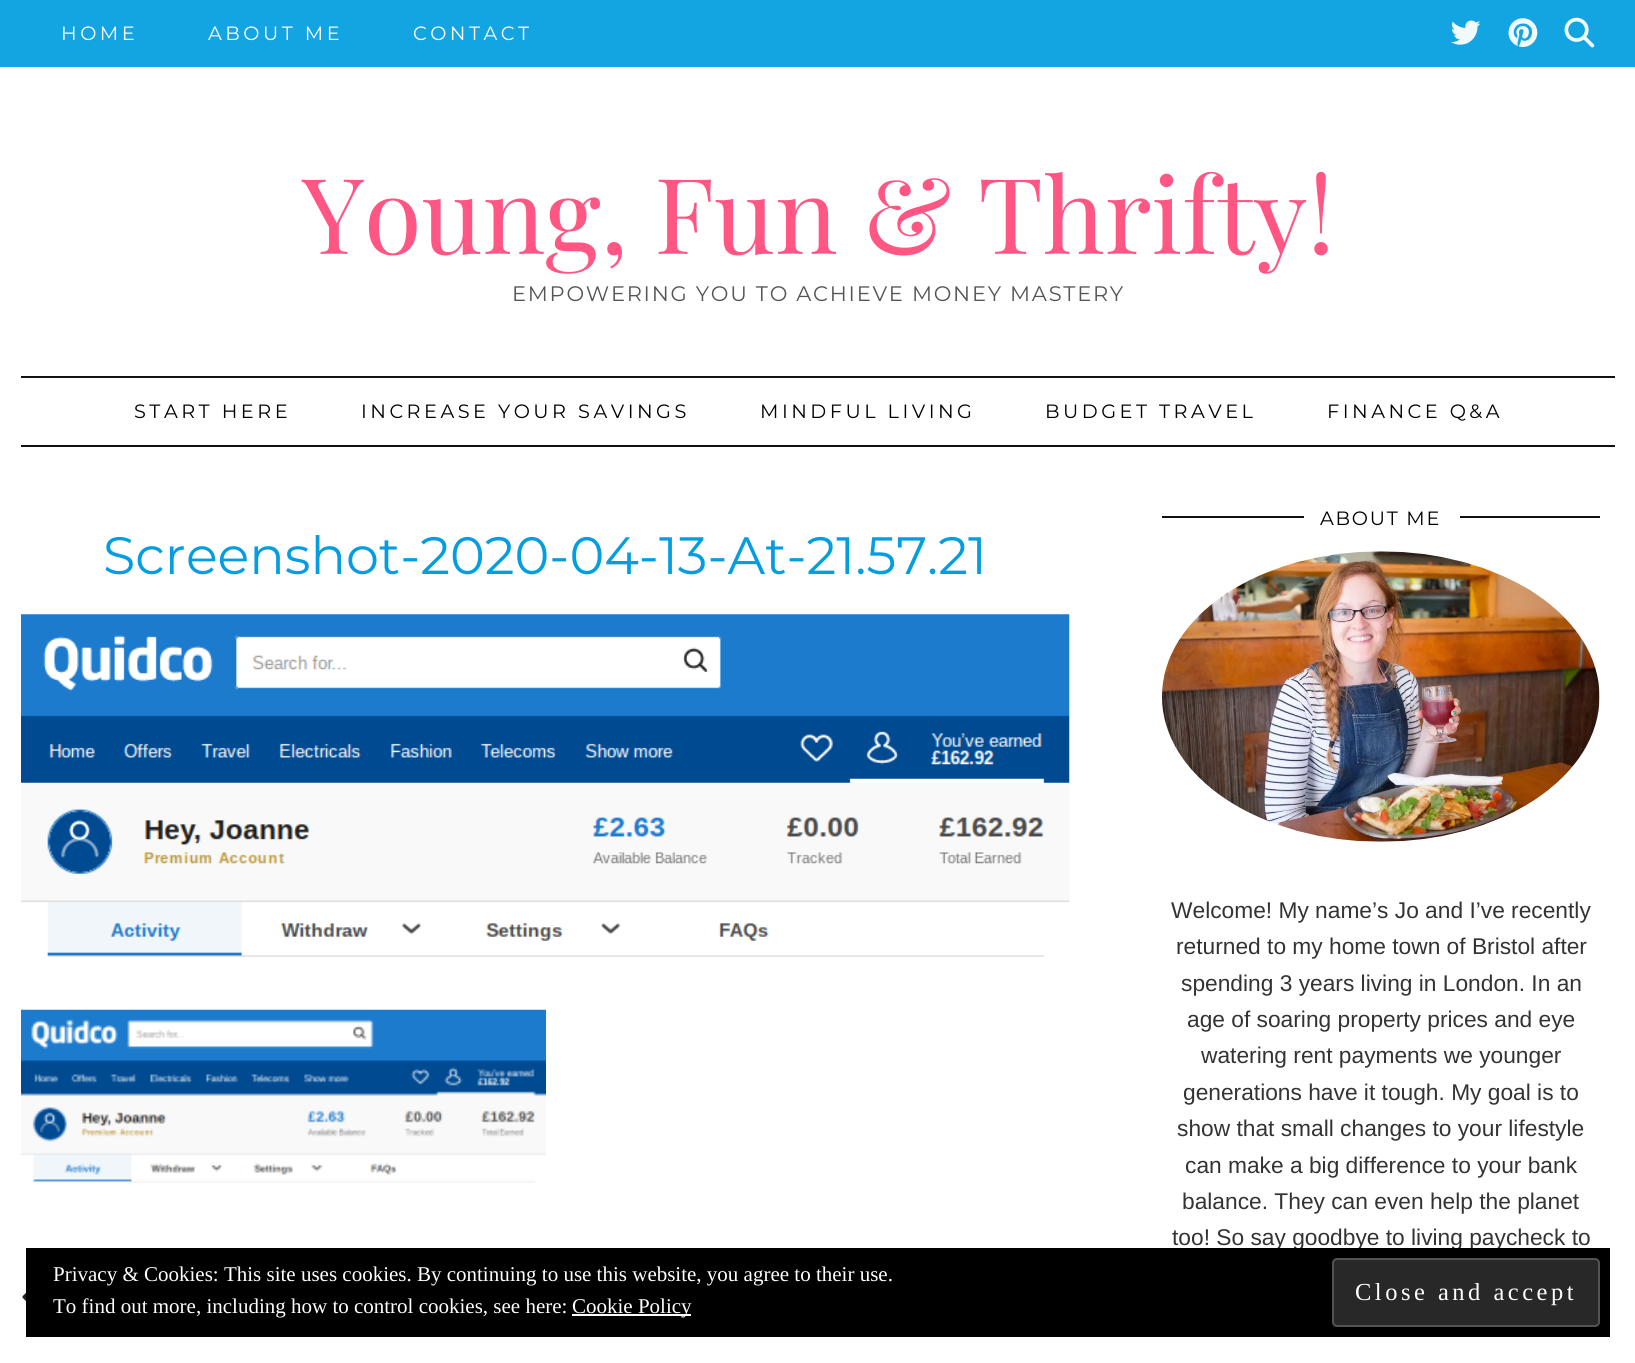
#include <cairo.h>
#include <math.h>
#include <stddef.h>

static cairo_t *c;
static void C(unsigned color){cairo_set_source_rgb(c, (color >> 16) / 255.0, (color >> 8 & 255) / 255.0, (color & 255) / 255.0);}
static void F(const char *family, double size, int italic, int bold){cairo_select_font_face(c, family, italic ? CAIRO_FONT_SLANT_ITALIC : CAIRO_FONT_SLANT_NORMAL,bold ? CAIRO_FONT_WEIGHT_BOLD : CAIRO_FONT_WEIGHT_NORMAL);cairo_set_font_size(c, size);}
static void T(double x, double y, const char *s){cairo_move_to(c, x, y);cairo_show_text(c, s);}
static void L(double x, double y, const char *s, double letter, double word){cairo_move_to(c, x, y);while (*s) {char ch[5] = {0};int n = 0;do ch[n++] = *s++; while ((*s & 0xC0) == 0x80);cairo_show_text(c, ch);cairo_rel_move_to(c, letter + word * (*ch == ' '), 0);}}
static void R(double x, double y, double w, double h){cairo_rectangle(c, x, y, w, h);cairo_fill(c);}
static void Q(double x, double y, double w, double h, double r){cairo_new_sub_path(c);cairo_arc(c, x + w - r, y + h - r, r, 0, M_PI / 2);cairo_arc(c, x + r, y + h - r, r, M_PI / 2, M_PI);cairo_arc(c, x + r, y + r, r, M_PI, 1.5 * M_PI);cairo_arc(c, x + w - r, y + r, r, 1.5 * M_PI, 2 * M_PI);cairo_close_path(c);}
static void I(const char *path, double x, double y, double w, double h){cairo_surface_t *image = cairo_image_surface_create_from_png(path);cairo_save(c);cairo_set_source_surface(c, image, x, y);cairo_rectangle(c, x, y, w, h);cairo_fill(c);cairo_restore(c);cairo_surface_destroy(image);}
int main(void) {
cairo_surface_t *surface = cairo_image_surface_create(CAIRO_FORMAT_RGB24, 1635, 1363);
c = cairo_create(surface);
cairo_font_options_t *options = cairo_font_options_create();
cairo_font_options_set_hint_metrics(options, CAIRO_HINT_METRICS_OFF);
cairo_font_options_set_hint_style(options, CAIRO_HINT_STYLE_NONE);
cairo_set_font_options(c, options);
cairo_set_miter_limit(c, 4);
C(0xffffff);
cairo_paint(c);
C(0x13a4e2);
R(0,0,1635,67);
F("Montserrat Thin",19.25,0,0);
C(0xffffff);
L(61,40,"HOME",3.5,0);
L(208,40,"ABOUT ME",3.5,0);
L(413,40,"CONTACT",3.5,0);
I("1.png",1451,20,30,25);
I("2.png",1508,18,30,29);
I("3.png",1564,17,31,31);
F("Playfair Display",105,0,0);
C(0xff5683);
T(302,254,"Young, Fun & Thrifty!");
F("Montserrat Thin",21,0,0);
C(0x555555);
L(512,301,"EMPOWERING YOU TO ACHIEVE MONEY MASTERY",1.75,0);
C(0x111111);
R(21,376,1594,2);
R(21,445,1594,2);
F("Montserrat Thin",19.25,0,0);
C(0x000000);
L(134,418,"START HERE",3.5,0);
L(361,418,"INCREASE YOUR SAVINGS",3.5,0);
L(760,418,"MINDFUL LIVING",3.5,0);
L(1045,418,"BUDGET TRAVEL",3.5,0);
L(1327,418,"FINANCE Q&A",3.5,0);
F("Montserrat Thin",52.5,0,0);
C(0x049ee0);
T(103,574,"Screenshot-2020-04-13-At-21.57.21");
I("4.png",21,614,1049,343);
I("5.png",21,1009,525,174);
I("6.png",22,1292,4,9);
C(0x111111);
R(1162,516,438,2);
C(0xffffff);
R(1304,516,156,2);
F("Montserrat Thin",19.25,0,0);
C(0x000000);
L(1320,525,"ABOUT ME",1.75,0);
I("7.png",1162,551,438,291);
F("Liberation Sans",22.75,0,0);
C(0x333333);
T(1171,918,"Welcome! My name’s Jo and I’ve recently");
T(1176,954,"returned to my home town of Bristol after");
T(1181,991,"spending 3 years living in London. In an");
T(1187,1027,"age of soaring property prices and eye");
T(1201,1063,"watering rent payments we younger");
T(1183,1100,"generations have it tough. My goal is to");
T(1177,1136,"show that small changes to your lifestyle");
T(1185,1173,"can make a big difference to your bank");
T(1182,1209,"balance. They can even help the planet");
T(1172,1245,"too! So say goodbye to living paycheck to");
C(0x000000);
R(26,1248,1584,89);
F("Liberation Serif",21,0,0);
C(0xffffff);
T(53,1281,"Privacy & Cookies: This site uses cookies. By continuing to use this website, you agree to their use.");
C(0x282828);
Q(1333,1259,266,67,4);
cairo_fill_preserve(c);
C(0x535353);
cairo_stroke(c);
F("Liberation Serif",24.5,0,0);
C(0xffffff);
L(1355,1300,"Close and accept",3.5,0);
F("Liberation Serif",21,0,0);
T(53,1313,"To find out more, including how to control cookies, see here:");
R(572,1314,119,2);
T(572,1313,"Cookie Policy");
cairo_surface_write_to_png(surface, "o.png");
cairo_font_options_destroy(options);
cairo_destroy(c);
cairo_surface_destroy(surface);
return 0;
}
